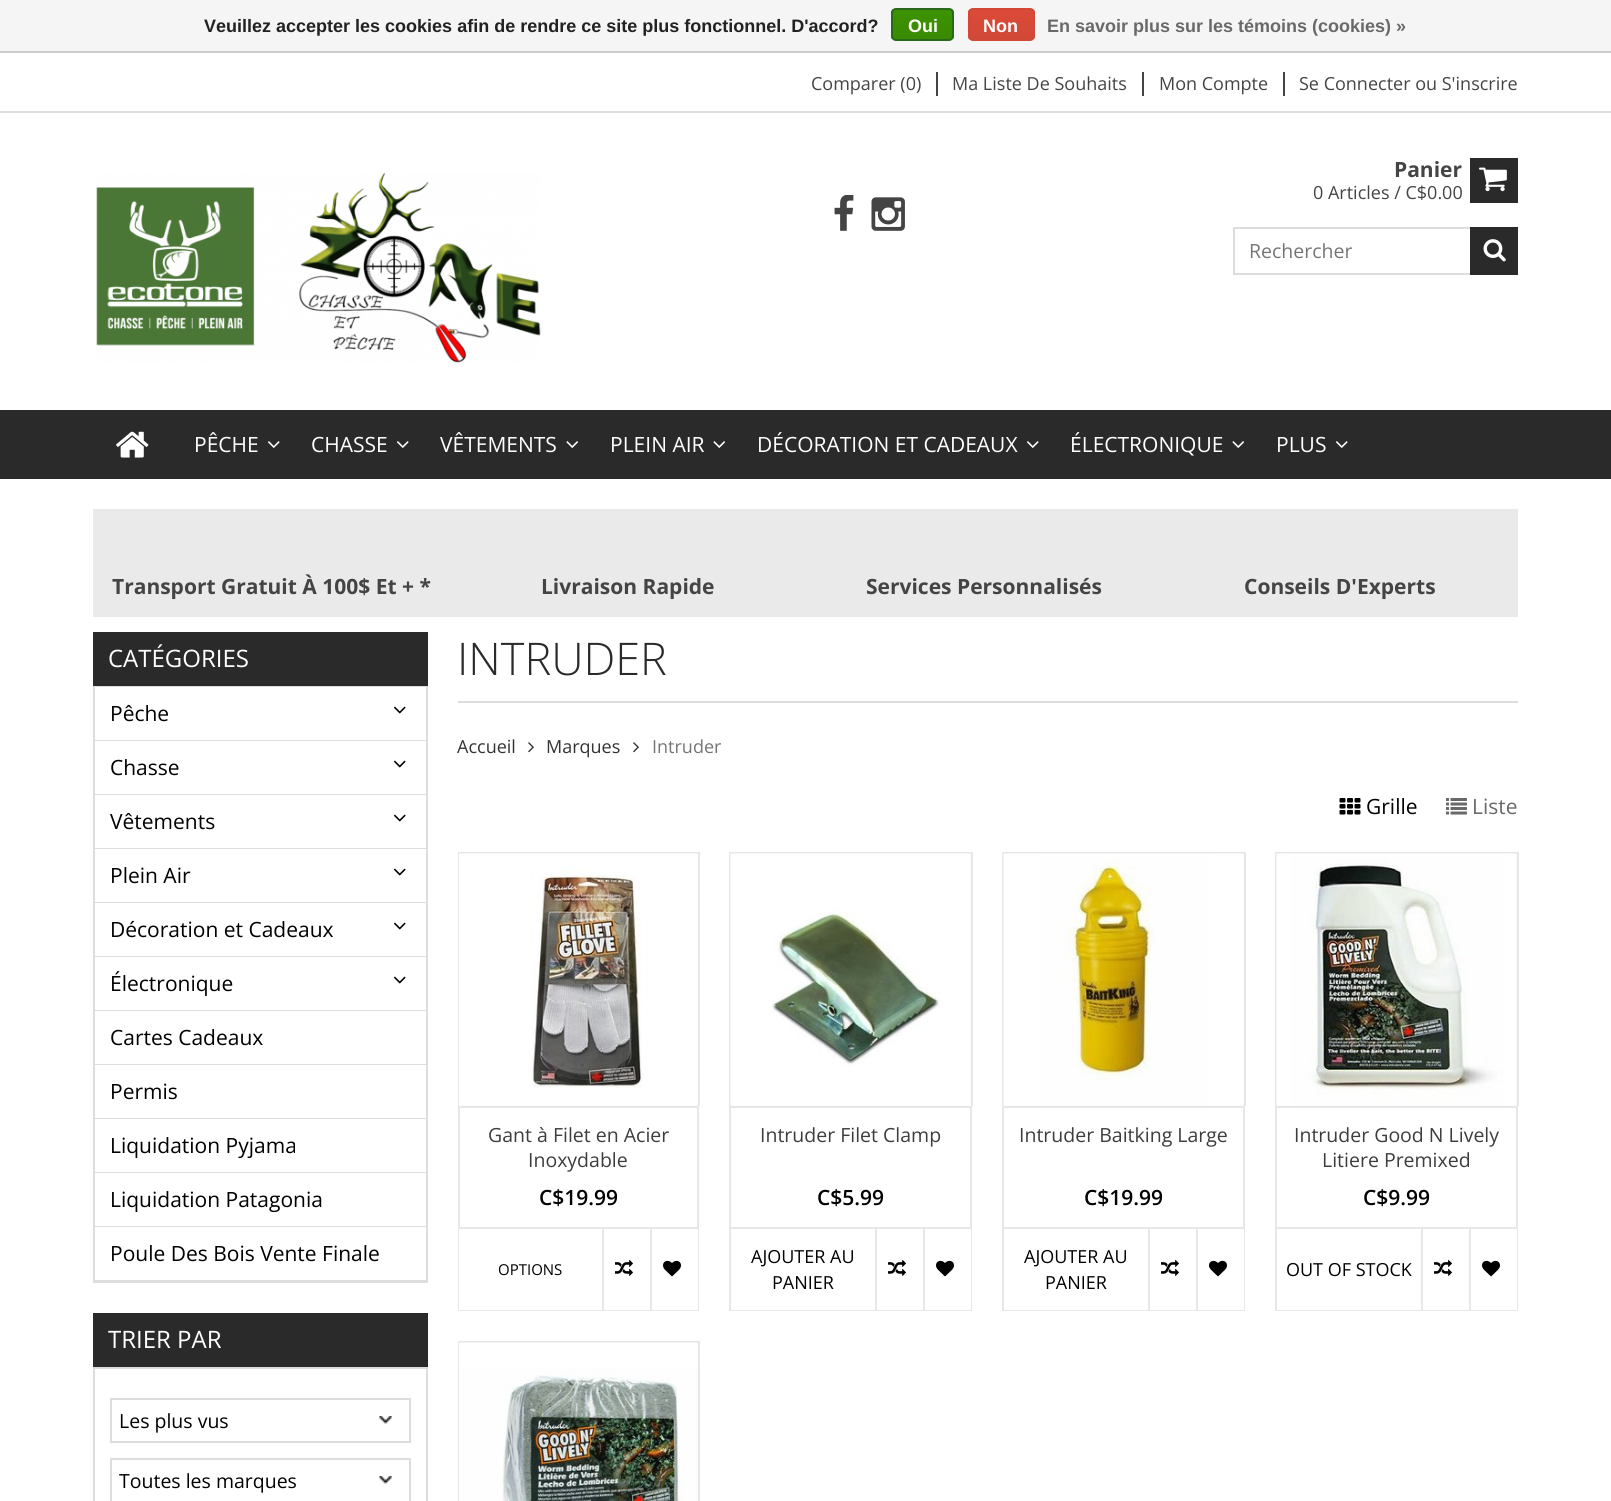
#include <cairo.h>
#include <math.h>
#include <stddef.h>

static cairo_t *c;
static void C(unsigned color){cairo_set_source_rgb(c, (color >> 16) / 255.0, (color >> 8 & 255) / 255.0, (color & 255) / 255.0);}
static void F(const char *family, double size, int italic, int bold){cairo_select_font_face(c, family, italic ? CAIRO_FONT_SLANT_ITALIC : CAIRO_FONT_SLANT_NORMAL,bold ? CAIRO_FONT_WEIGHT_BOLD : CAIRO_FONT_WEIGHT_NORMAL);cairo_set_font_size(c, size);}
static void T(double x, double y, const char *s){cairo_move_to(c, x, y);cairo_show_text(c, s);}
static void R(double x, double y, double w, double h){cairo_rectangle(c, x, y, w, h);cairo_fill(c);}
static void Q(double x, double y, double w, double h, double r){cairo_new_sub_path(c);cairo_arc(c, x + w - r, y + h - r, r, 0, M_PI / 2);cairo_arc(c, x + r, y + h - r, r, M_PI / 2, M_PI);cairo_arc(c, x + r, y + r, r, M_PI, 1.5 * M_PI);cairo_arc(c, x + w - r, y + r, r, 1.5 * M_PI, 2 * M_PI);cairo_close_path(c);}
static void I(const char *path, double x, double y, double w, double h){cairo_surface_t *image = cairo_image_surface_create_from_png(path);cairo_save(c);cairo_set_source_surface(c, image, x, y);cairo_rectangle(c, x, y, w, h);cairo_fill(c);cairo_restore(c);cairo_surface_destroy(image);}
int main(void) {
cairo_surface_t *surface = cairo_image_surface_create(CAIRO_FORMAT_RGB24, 1611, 1501);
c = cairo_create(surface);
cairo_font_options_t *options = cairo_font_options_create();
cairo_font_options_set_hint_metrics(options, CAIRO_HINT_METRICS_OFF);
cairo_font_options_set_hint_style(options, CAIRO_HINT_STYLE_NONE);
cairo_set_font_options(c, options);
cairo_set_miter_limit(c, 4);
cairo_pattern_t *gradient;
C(0xffffff);
cairo_paint(c);
C(0xf5f5f5);
R(0,0,1611,51);
C(0xcccccc);
R(0,51,1611,2);
F("Liberation Sans",18,0,1);
C(0x222222);
T(204,32,"Veuillez accepter les cookies afin de rendre ce site plus fonctionnel. D'accord?");
cairo_save(c);
Q(891,8,63,33,5);
cairo_clip(c);
gradient = cairo_pattern_create_linear(923,9,923,39);
cairo_pattern_add_color_stop_rgba(gradient,0,0.235,0.576,0,1);
cairo_pattern_add_color_stop_rgba(gradient,1,0.224,0.541,0,1);
cairo_set_source(c,gradient);
cairo_pattern_destroy(gradient);
R(891,9,63,30);
cairo_restore(c);
Q(892,9,61,31,4);
C(0x29691d);
cairo_stroke(c);
C(0xffffff);
T(908,32,"Oui");
cairo_save(c);
Q(968,8,67,33,5);
cairo_clip(c);
gradient = cairo_pattern_create_linear(1001,9,1001,39);
cairo_pattern_add_color_stop_rgba(gradient,0,0.863,0.29,0.22,1);
cairo_pattern_add_color_stop_rgba(gradient,1,0.82,0.282,0.212,1);
cairo_set_source(c,gradient);
cairo_pattern_destroy(gradient);
R(968,9,67,30);
cairo_restore(c);
Q(969,9,65,31,4);
C(0xd14836);
cairo_stroke(c);
C(0xffffff);
T(983,32,"Non");
C(0x696969);
T(1047,32,"En savoir plus sur les témoins (cookies) »");
C(0xdddddd);
R(0,111,1611,2);
C(0x444444);
R(936,72,2,24);
F("Open Sans",18,0,0);
T(811,90,"Comparer (0)");
R(1142,72,2,24);
T(952,90,"Ma Liste De Souhaits");
R(1283,72,2,24);
T(1159,90,"Mon Compte");
T(1299,90,"Se Connecter ou S'inscrire");
I("1.png",96,172,445,191);
I("2.png",834,195,20,36);
I("3.png",871,197,34,34);
F("Open Sans",21,0,1);
T(1394,177,"Panier");
F("Open Sans",18,0,0);
T(1313,199,"0 Articles / C$0.00");
C(0x2a2a2a);
R(1470,158,48,45);
I("4.png",1479,167,28,25);
cairo_rectangle(c,1234,228,283,46);
C(0xdddddd);
cairo_stroke(c);
F("Open Sans",19.5,0,0);
C(0x757575);
T(1249,258,"Rechercher");
C(0x2a2a2a);
R(1470,227,48,48);
I("5.png",1483,239,23,23);
R(0,410,1611,69);
I("6.png",116,431,33,27);
F("Open Sans",21,0,0);
C(0xffffff);
T(194,452,"PÊCHE");
I("7.png",268,441,12,7);
T(311,452,"CHASSE");
I("7.png",397,441,12,7);
T(440,452,"VÊTEMENTS");
I("8.png",566,441,12,7);
T(610,452,"PLEIN AIR");
I("8.png",713,441,12,7);
T(757,452,"DÉCORATION ET CADEAUX");
I("7.png",1027,441,12,7);
T(1070,452,"ÉLECTRONIQUE");
I("8.png",1232,441,12,7);
T(1276,452,"PLUS");
I("7.png",1336,441,12,7);
C(0xeaeaea);
R(93,509,1425,108);
F("Open Sans",21,0,1);
C(0x444444);
T(112,594,"Transport Gratuit À 100$ Et + *");
T(541,594,"Livraison Rapide");
T(866,594,"Services Personnalisés");
T(1244,594,"Conseils D'Experts");
C(0x2a2a2a);
R(93,632,335,54);
F("Open Sans",24,0,0);
C(0xffffff);
T(108,667,"CATÉGORIES");
cairo_rectangle(c,94,687,333,595);
C(0xdddddd);
cairo_stroke(c);
C(0xffffff);
R(95,687,331,1);
C(0xdddddd);
R(95,740,331,1);
F("Open Sans",21,0,0);
C(0x000000);
T(110,721,"Pêche");
I("9.png",393,706,13,8);
C(0xdddddd);
R(95,794,331,1);
C(0x000000);
T(110,775,"Chasse");
I("9.png",393,760,13,8);
C(0xdddddd);
R(95,848,331,1);
C(0x000000);
T(110,829,"Vêtements");
I("9.png",393,814,13,8);
C(0xdddddd);
R(95,902,331,1);
C(0x000000);
T(110,883,"Plein Air");
I("9.png",393,868,13,8);
C(0xdddddd);
R(95,956,331,1);
C(0x000000);
T(110,937,"Décoration et Cadeaux");
I("9.png",393,922,13,8);
C(0xdddddd);
R(95,1010,331,1);
C(0x000000);
T(110,991,"Électronique");
I("9.png",393,976,13,8);
C(0xdddddd);
R(95,1064,331,1);
C(0x000000);
T(110,1045,"Cartes Cadeaux");
C(0xdddddd);
R(95,1118,331,1);
C(0x000000);
T(110,1099,"Permis");
C(0xdddddd);
R(95,1172,331,1);
C(0x000000);
T(110,1153,"Liquidation Pyjama");
C(0xdddddd);
R(95,1226,331,1);
C(0x000000);
T(110,1207,"Liquidation Patagonia");
C(0xdddddd);
R(95,1280,331,1);
C(0x000000);
T(110,1261,"Poule Des Bois Vente Finale");
C(0x2a2a2a);
R(93,1313,335,54);
F("Open Sans",24,0,0);
C(0xffffff);
T(108,1348,"TRIER PAR");
cairo_rectangle(c,94,1368,333,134);
C(0xdddddd);
cairo_stroke(c);
I("10.png",379,1416,13,8);
cairo_rectangle(c,111,1399,299,43);
cairo_stroke(c);
F("Open Sans",19.5,0,0);
C(0x000000);
T(119,1428,"Les plus vus");
I("10.png",379,1476,13,8);
cairo_rectangle(c,111,1459,299,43);
C(0xdddddd);
cairo_stroke(c);
C(0x000000);
T(119,1488,"Toutes les marques");
C(0xdddddd);
R(458,701,1060,2);
F("Open Sans Light",45,0,0);
C(0x2a2a2a);
T(457,675,"INTRUDER");
F("Open Sans",18,0,0);
C(0x333333);
T(457,753,"Accueil");
I("11.png",528,742,6,11);
T(546,753,"Marques");
I("11.png",633,742,6,11);
C(0x757575);
T(652,753,"Intruder");
I("12.png",1339,798,22,17);
F("Open Sans",21,0,0);
C(0x000000);
T(1366,814,"Grille");
I("13.png",1446,798,21,17);
C(0x696969);
T(1472,814,"Liste");
C(0xe7e7e7);
R(458,852,241,2);
R(698,852,2,254);
R(458,852,2,254);
C(0xf7f7f7);
R(459,854,239,252);
I("14.png",459,853,239,253);
cairo_rectangle(c,459,1107,239,203);
C(0xe7e7e7);
cairo_stroke(c);
F("Open Sans",19.5,0,0);
C(0x3d3d3d);
T(488,1142,"Gant à Filet en Acier");
T(528,1167,"Inoxydable");
F("Open Sans SemiBold",21,0,0);
C(0x000000);
T(539,1205,"C$19.99");
C(0xffffff);
R(459,1229,239,81);
C(0xe7e7e7);
R(459,1227,239,2);
F("Open Sans",15,0,0);
C(0x000000);
T(498,1275,"OPTIONS");
C(0xe7e7e7);
R(602,1229,2,81);
I("15.png",615,1259,18,17);
R(650,1229,2,81);
I("16.png",663,1260,18,17);
R(729,852,243,2);
R(971,852,2,254);
R(729,852,2,254);
C(0xf7f7f7);
R(731,854,240,252);
I("17.png",730,853,241,253);
cairo_rectangle(c,730,1107,241,203);
C(0xe7e7e7);
cairo_stroke(c);
F("Open Sans",19.5,0,0);
C(0x3d3d3d);
T(760,1142,"Intruder Filet Clamp");
F("Open Sans SemiBold",21,0,0);
C(0x000000);
T(817,1205,"C$5.99");
C(0xffffff);
R(731,1229,240,81);
C(0xe7e7e7);
R(731,1227,240,2);
F("Open Sans",18,0,0);
C(0x000000);
T(751,1263,"AJOUTER AU");
T(772,1289,"PANIER");
C(0xe7e7e7);
R(875,1229,2,81);
I("15.png",888,1259,18,17);
R(923,1229,2,81);
I("16.png",936,1260,18,17);
R(1002,852,243,2);
R(1244,852,2,254);
R(1002,852,2,254);
C(0xf7f7f7);
R(1004,854,240,252);
I("18.png",1003,853,241,253);
cairo_rectangle(c,1003,1107,241,203);
C(0xe7e7e7);
cairo_stroke(c);
F("Open Sans",19.5,0,0);
C(0x3d3d3d);
T(1019,1142,"Intruder Baitking Large");
F("Open Sans SemiBold",21,0,0);
C(0x000000);
T(1084,1205,"C$19.99");
C(0xffffff);
R(1004,1229,240,81);
C(0xe7e7e7);
R(1004,1227,240,2);
F("Open Sans",18,0,0);
C(0x000000);
T(1024,1263,"AJOUTER AU");
T(1045,1289,"PANIER");
C(0xe7e7e7);
R(1148,1229,2,81);
I("15.png",1161,1259,18,17);
R(1196,1229,2,81);
I("16.png",1209,1260,18,17);
R(1275,852,243,2);
R(1517,852,2,254);
R(1275,852,2,254);
C(0xf7f7f7);
R(1277,854,240,252);
I("19.png",1276,853,241,253);
cairo_rectangle(c,1276,1107,241,203);
C(0xe7e7e7);
cairo_stroke(c);
F("Open Sans",19.5,0,0);
C(0x3d3d3d);
T(1294,1142,"Intruder Good N Lively");
T(1322,1167,"Litiere Premixed");
F("Open Sans SemiBold",21,0,0);
C(0x000000);
T(1363,1205,"C$9.99");
C(0xffffff);
R(1277,1229,240,81);
C(0xe7e7e7);
R(1277,1227,240,2);
F("Open Sans",18,0,0);
C(0x000000);
T(1286,1276,"OUT OF STOCK");
C(0xe7e7e7);
R(1421,1229,2,81);
I("15.png",1434,1259,18,17);
R(1469,1229,2,81);
I("16.png",1482,1260,18,17);
R(458,1341,241,2);
R(698,1341,2,160);
R(458,1341,2,160);
C(0xf7f7f7);
R(697,1343,1,158);
I("20.png",459,1342,239,159);
cairo_surface_write_to_png(surface, "o.png");
cairo_font_options_destroy(options);
cairo_destroy(c);
cairo_surface_destroy(surface);
return 0;
}
